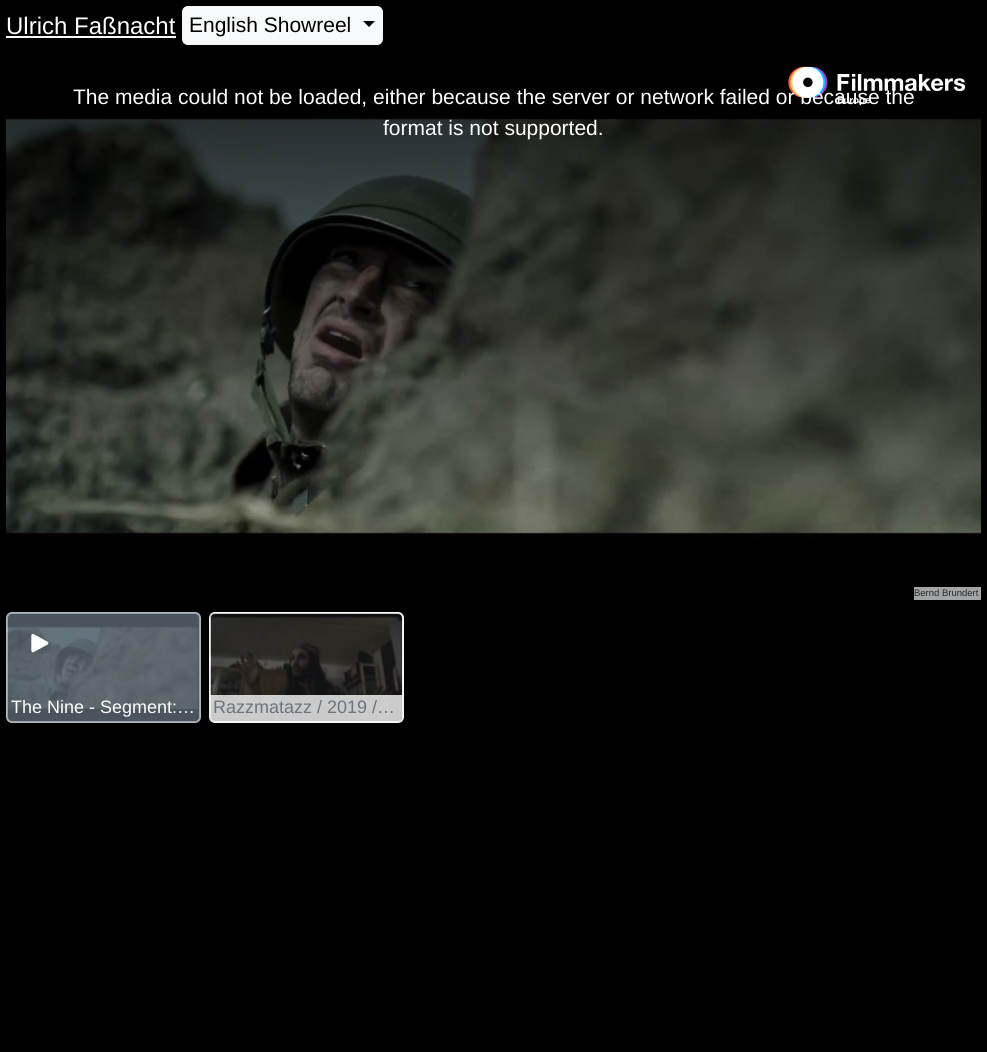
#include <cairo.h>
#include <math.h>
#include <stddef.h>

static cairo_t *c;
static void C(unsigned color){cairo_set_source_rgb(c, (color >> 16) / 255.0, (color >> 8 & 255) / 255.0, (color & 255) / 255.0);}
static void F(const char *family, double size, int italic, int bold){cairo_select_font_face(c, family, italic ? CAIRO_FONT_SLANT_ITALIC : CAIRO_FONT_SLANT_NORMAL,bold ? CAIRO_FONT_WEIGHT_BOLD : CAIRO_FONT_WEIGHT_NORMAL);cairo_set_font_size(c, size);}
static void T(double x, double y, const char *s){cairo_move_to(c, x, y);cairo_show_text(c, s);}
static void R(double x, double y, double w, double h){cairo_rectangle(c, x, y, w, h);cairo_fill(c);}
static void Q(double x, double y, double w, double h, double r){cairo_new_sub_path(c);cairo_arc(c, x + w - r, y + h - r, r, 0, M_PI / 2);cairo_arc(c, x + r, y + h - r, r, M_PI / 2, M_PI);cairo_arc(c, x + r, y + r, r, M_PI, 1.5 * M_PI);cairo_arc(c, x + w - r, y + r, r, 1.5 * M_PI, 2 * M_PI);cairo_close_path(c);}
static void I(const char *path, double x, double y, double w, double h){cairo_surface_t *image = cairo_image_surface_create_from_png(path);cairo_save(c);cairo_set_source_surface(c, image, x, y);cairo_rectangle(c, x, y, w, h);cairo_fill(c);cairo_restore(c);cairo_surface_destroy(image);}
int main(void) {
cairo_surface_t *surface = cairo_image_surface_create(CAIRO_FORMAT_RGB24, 987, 1052);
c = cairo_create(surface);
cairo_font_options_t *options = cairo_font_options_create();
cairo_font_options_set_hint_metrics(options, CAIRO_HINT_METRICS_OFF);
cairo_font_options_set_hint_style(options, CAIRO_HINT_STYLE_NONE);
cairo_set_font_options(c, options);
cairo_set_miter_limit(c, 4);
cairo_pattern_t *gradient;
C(0x000000);
cairo_paint(c);
F("Liberation Sans",24,0,0);
C(0xffffff);
T(6,34,"Ulrich Faßnacht");
R(6,36,170,2);
C(0xf8f9fa);
Q(183,7,199,37,5);
cairo_fill_preserve(c);
cairo_stroke(c);
F("Liberation Sans",21,0,0);
C(0x000000);
T(189,32,"English Showreel");
cairo_new_path(c);
cairo_move_to(c,363,21);
cairo_line_to(c,375,21);
cairo_line_to(c,369,27);
cairo_close_path(c);
cairo_fill(c);
I("1.png",788,66,178,40);
I("2.png",6,116,975,423);
gradient = cairo_pattern_create_linear(494,51,494,600);
cairo_pattern_add_color_stop_rgba(gradient,0,0,0,0,.8);
cairo_pattern_add_color_stop_rgba(gradient,1,0,0,0,0);
cairo_set_source(c,gradient);
cairo_pattern_destroy(gradient);
R(6,116,975,418);
C(0xffffff);
T(73,104,"The media could not be loaded, either because the server or network failed or because the");
T(383,135,"format is not supported.");
C(0xa3a5a7);
R(914,587,67,13);
F("Liberation Sans",9.5,0,0);
C(0x282828);
T(914,596,"Bernd Brundert");
C(0x5d6974);
Q(7,613,193,109,5);
cairo_fill_preserve(c);
C(0xadb5bd);
cairo_stroke(c);
I("3.png",7,613,193,109);
I("4.png",31,634,18,19);
F("Liberation Sans",18,0,0);
C(0xffffff);
T(11,713,"The Nine - Segment:…");
C(0x161719);
Q(210,613,193,109,5);
cairo_fill_preserve(c);
C(0xf8f9fa);
cairo_stroke(c);
I("5.png",209,613,194,109);
cairo_set_source_rgba(c,0.973,0.976,0.98,0.8);
cairo_new_path(c);
cairo_move_to(c,210,695);
cairo_line_to(c,402,695);
cairo_line_to(c,402,717);
cairo_curve_to(c,402,720,400,722,397,722);
cairo_line_to(c,215,722);
cairo_curve_to(c,212,722,210,720,210,717);
cairo_close_path(c);
cairo_fill(c);
C(0x6c757d);
T(213,713,"Razzmatazz / 2019 /…");
cairo_surface_write_to_png(surface, "o.png");
cairo_font_options_destroy(options);
cairo_destroy(c);
cairo_surface_destroy(surface);
return 0;
}
